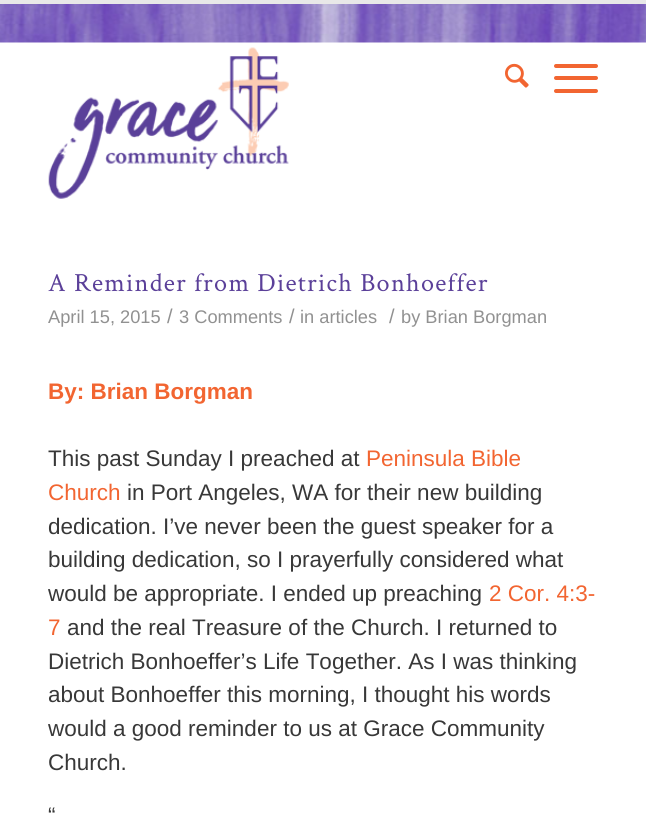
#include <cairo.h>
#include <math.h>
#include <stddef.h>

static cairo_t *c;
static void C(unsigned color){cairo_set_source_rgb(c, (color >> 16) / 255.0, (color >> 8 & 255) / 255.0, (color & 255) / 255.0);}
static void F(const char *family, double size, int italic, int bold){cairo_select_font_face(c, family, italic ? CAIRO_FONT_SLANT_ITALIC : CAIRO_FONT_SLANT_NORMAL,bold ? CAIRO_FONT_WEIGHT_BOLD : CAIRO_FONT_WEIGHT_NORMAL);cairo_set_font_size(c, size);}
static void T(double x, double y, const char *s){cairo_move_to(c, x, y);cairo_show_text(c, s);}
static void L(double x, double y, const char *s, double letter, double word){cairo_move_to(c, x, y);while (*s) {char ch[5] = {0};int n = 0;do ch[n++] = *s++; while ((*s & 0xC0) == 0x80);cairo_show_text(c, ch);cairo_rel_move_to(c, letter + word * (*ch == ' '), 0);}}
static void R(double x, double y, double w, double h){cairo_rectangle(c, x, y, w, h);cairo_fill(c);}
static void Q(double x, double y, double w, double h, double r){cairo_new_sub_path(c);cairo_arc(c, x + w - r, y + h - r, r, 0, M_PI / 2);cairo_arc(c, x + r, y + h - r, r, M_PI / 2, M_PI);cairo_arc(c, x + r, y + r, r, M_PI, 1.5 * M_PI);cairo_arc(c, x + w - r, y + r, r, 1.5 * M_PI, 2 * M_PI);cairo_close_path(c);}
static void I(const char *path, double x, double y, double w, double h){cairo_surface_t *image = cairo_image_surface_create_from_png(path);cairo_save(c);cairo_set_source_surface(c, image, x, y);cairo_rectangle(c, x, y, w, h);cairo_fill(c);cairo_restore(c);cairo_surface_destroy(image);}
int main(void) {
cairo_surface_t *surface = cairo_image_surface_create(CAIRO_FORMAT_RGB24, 646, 816);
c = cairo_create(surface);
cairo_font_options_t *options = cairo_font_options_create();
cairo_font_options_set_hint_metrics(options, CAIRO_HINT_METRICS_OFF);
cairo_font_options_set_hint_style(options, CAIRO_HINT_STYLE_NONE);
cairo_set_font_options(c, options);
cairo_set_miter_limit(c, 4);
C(0xe8e8e8);
cairo_paint(c);
C(0xffffff);
R(0,42,646,774);
I("1.png",0,4,646,39);
I("2.png",48,47,241,152);
I("3.png",505,63,24,25);
C(0xf26531);
Q(554,76,44,4,2);
cairo_fill(c);
Q(554,64,44,4,2);
cairo_fill(c);
Q(554,89,44,4,2);
cairo_fill(c);
F("Crimson Text",26.25,0,0);
C(0x5b4099);
L(48,291,"A Reminder from Dietrich Bonhoeffer",1.25,0);
F("Liberation Sans",18.25,0,0);
C(0x919191);
T(48,323,"April 15, 2015");
F("Liberation Sans",20,0,0);
T(167,323,"/");
F("Liberation Sans",18.25,0,0);
T(179,323,"3 Comments");
F("Liberation Sans",20,0,0);
T(289,323,"/");
F("Liberation Sans",18.25,0,0);
T(300,323,"in articles");
F("Liberation Sans",20,0,0);
T(389,323,"/");
F("Liberation Sans",18.25,0,0);
T(401,323,"by Brian Borgman");
F("Liberation Sans",22.5,0,1);
C(0xf26531);
T(48,399,"By: Brian Borgman");
F("Liberation Sans",22.5,0,0);
C(0x383838);
T(48,466,"This past Sunday I preached at");
C(0xf26531);
T(366,466,"Peninsula Bible");
T(48,500,"Church");
C(0x383838);
T(127,500,"in Port Angeles, WA for their new building");
T(48,534,"dedication. I’ve never been the guest speaker for a");
T(48,567,"building dedication, so I prayerfully considered what");
T(48,601,"would be appropriate. I ended up preaching");
C(0xf26531);
T(489,601,"2 Cor. 4:3-");
T(48,635,"7");
C(0x383838);
T(67,635,"and the real Treasure of the Church. I returned to");
T(48,669,"Dietrich Bonhoeffer’s Life Together. As I was thinking");
T(48,702,"about Bonhoeffer this morning, I thought his words");
T(48,736,"would a good reminder to us at Grace Community");
T(48,770,"Church.");
T(48,823,"“");
cairo_surface_write_to_png(surface, "o.png");
cairo_font_options_destroy(options);
cairo_destroy(c);
cairo_surface_destroy(surface);
return 0;
}
